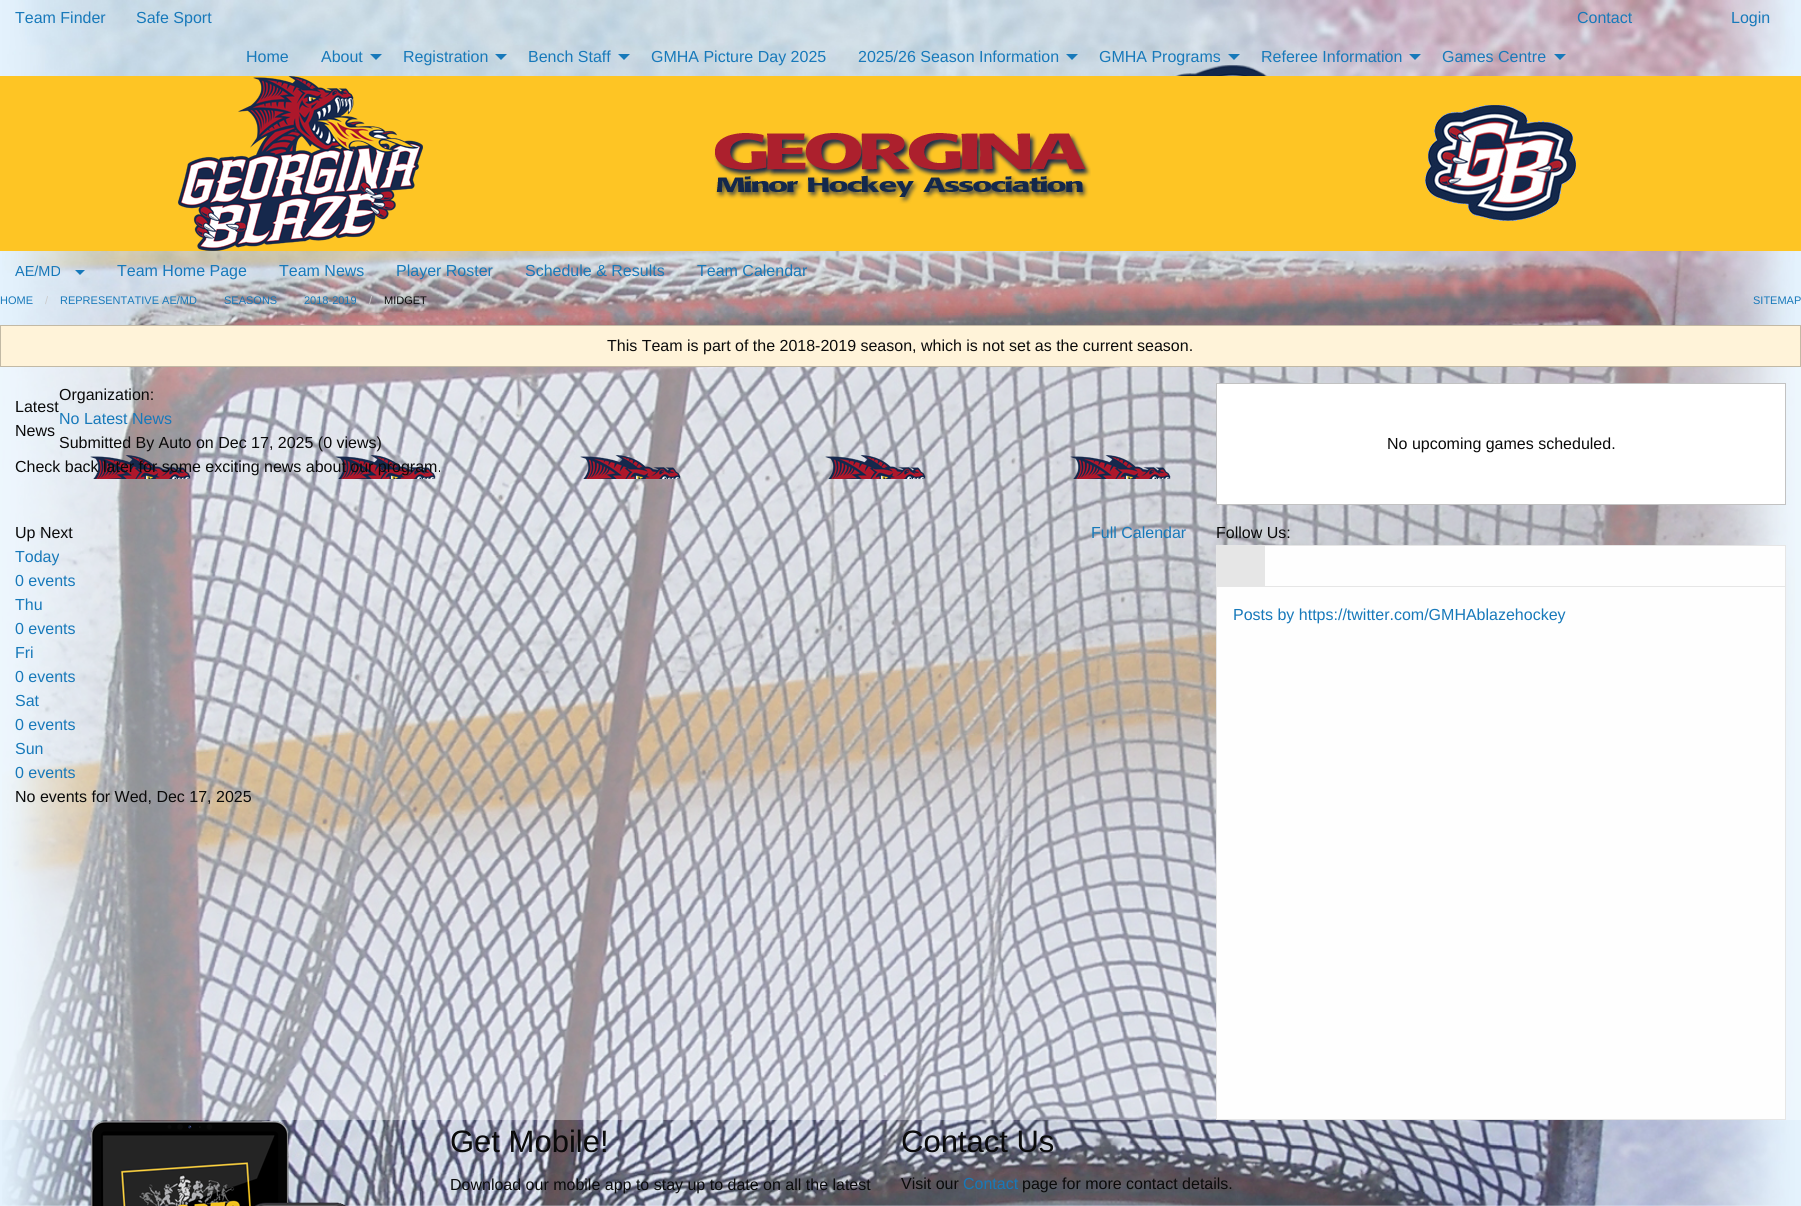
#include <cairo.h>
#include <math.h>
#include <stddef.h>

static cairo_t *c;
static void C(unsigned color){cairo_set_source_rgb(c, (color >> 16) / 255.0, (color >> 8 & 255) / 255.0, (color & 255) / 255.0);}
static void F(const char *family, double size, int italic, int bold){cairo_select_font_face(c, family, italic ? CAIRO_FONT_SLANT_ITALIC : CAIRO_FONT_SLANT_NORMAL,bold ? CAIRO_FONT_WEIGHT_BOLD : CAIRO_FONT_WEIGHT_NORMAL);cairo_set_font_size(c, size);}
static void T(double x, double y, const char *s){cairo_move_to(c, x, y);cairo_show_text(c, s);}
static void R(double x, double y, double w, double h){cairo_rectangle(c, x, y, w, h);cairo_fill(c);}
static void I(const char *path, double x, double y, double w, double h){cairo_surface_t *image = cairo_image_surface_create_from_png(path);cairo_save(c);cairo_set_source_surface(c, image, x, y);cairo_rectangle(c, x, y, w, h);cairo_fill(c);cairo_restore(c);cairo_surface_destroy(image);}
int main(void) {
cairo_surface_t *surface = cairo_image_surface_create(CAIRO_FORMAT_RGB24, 1801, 1206);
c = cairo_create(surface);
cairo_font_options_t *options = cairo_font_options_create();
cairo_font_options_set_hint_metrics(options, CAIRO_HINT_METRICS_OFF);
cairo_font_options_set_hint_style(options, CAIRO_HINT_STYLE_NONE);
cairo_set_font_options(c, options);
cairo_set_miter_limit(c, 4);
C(0xe4f2fd);
cairo_paint(c);
I("1.png",2,0,1793,1206);
F("Liberation Sans",16,0,0);
C(0x1779ba);
T(15,23,"Team Finder");
T(136,23,"Safe Sport");
T(1577,23,"Contact");
T(1731,23,"Login");
T(246,62,"Home");
T(321,62,"About");
cairo_new_path(c);
cairo_move_to(c,370,54);
cairo_line_to(c,382,54);
cairo_line_to(c,376,60);
cairo_close_path(c);
cairo_fill(c);
T(403,62,"Registration");
cairo_new_path(c);
cairo_move_to(c,495,54);
cairo_line_to(c,507,54);
cairo_line_to(c,501,60);
cairo_close_path(c);
cairo_fill(c);
T(528,62,"Bench Staff");
cairo_new_path(c);
cairo_move_to(c,618,54);
cairo_line_to(c,630,54);
cairo_line_to(c,624,60);
cairo_close_path(c);
cairo_fill(c);
T(651,62,"GMHA Picture Day 2025");
T(858,62,"2025/26 Season Information");
cairo_new_path(c);
cairo_move_to(c,1066,54);
cairo_line_to(c,1078,54);
cairo_line_to(c,1072,60);
cairo_close_path(c);
cairo_fill(c);
T(1099,62,"GMHA Programs");
cairo_new_path(c);
cairo_move_to(c,1228,54);
cairo_line_to(c,1240,54);
cairo_line_to(c,1234,60);
cairo_close_path(c);
cairo_fill(c);
T(1261,62,"Referee Information");
cairo_new_path(c);
cairo_move_to(c,1409,54);
cairo_line_to(c,1421,54);
cairo_line_to(c,1415,60);
cairo_close_path(c);
cairo_fill(c);
T(1442,62,"Games Centre");
cairo_new_path(c);
cairo_move_to(c,1554,54);
cairo_line_to(c,1566,54);
cairo_line_to(c,1560,60);
cairo_close_path(c);
cairo_fill(c);
C(0xfec524);
R(0,76,1801,175);
I("2.png",178,76,245,175);
I("3.png",714,133,377,71);
I("4.png",1425,105,151,116);
F("Liberation Sans",14.5,0,0);
C(0x1779ba);
T(15,276,"AE/MD");
cairo_new_path(c);
cairo_move_to(c,75,270);
cairo_line_to(c,85,270);
cairo_line_to(c,80,275);
cairo_close_path(c);
cairo_fill(c);
F("Liberation Sans",16,0,0);
T(117,276,"Team Home Page");
T(279,276,"Team News");
T(396,276,"Player Roster");
T(525,276,"Schedule & Results");
T(697,276,"Team Calendar");
F("Liberation Sans",11,0,0);
T(0,304,"HOME");
C(0xcacaca);
T(45,304,"/");
C(0x1779ba);
T(60,304,"REPRESENTATIVE AE/MD");
T(224,304,"SEASONS");
T(304,304,"2018-2019");
C(0xcacaca);
T(369,304,"/");
C(0x0a0a0a);
T(384,304,"MIDGET");
C(0x1779ba);
T(1753,304,"SITEMAP");
cairo_set_source_rgba(c,1,1,1,0.2);
R(0,367,1801,753);
R(0,367,1801,753);
C(0xfff3d9);
cairo_rectangle(c,.5,325.5,1800,41);
cairo_fill_preserve(c);
C(0xc2b9a5);
cairo_set_line_width(c,1);
cairo_stroke(c);
F("Liberation Sans",16,0,0);
C(0x0a0a0a);
T(607,351,"This Team is part of the 2018-2019 season, which is not set as the current season.");
T(15,412,"Latest");
T(15,436,"News");
T(59,400,"Organization:");
C(0x1779ba);
T(59,424,"No Latest News");
C(0x0a0a0a);
T(59,448,"Submitted By Auto on Dec 17, 2025 (0 views)");
I("5.png",90,455,1081,24);
T(15,472,"Check back later for some exciting news about our program.");
C(0xffffff);
cairo_rectangle(c,1216.5,383.5,569,121);
cairo_fill_preserve(c);
C(0xc2c2c2);
cairo_stroke(c);
C(0x0a0a0a);
T(1387,449,"No upcoming games scheduled.");
T(15,538,"Up Next");
C(0x1779ba);
T(1091,538,"Full Calendar");
T(15,562,"Today");
T(15,586,"0 events");
T(15,610,"Thu");
T(15,634,"0 events");
T(15,658,"Fri");
T(15,682,"0 events");
T(15,706,"Sat");
T(15,730,"0 events");
T(15,754,"Sun");
T(15,778,"0 events");
C(0x0a0a0a);
T(15,802,"No events for Wed, Dec 17, 2025");
T(1216,538,"Follow Us:");
C(0xfefefe);
R(1265,546,520,40);
cairo_rectangle(c,1216.5,545.5,569,41);
C(0xe6e6e6);
cairo_stroke(c);
R(1217,546,48,40);
C(0xfefefe);
R(1217,587,568,532);
C(0xe6e6e6);
R(1785,587,1,533);
R(1216,1119,570,1);
R(1216,587,1,533);
C(0x1779ba);
T(1233,620,"Posts by https://twitter.com/GMHAblazehockey");
I("6.png",90,1120,256,86);
F("Liberation Sans",31,0,0);
C(0x0a0a0a);
T(450,1152,"Get Mobile!");
F("Liberation Sans",16,0,0);
T(450,1190,"Download our mobile app to stay up to date on all the latest");
F("Liberation Sans",31,0,0);
T(901,1152,"Contact Us");
F("Liberation Sans",16,0,0);
T(901,1189,"Visit our");
C(0x1779ba);
T(963,1189,"Contact");
C(0x0a0a0a);
T(1022,1189,"page for more contact details.");
cairo_surface_write_to_png(surface, "o.png");
cairo_font_options_destroy(options);
cairo_destroy(c);
cairo_surface_destroy(surface);
return 0;
}
